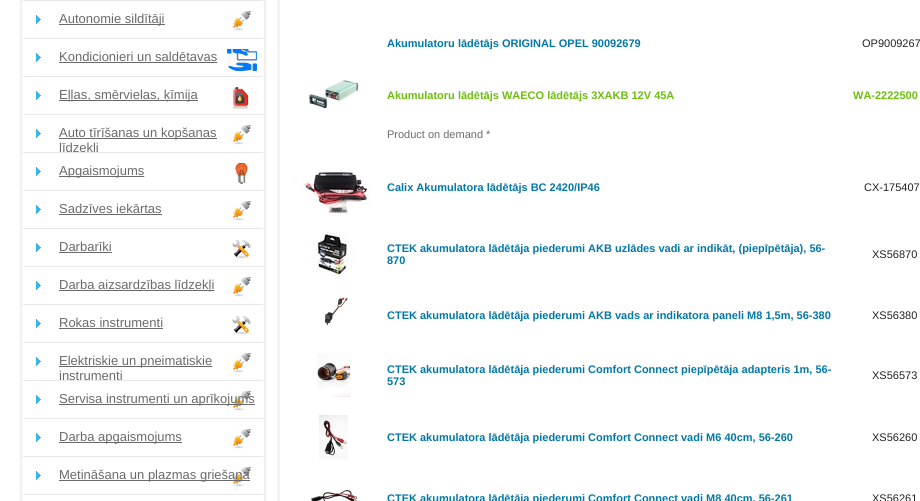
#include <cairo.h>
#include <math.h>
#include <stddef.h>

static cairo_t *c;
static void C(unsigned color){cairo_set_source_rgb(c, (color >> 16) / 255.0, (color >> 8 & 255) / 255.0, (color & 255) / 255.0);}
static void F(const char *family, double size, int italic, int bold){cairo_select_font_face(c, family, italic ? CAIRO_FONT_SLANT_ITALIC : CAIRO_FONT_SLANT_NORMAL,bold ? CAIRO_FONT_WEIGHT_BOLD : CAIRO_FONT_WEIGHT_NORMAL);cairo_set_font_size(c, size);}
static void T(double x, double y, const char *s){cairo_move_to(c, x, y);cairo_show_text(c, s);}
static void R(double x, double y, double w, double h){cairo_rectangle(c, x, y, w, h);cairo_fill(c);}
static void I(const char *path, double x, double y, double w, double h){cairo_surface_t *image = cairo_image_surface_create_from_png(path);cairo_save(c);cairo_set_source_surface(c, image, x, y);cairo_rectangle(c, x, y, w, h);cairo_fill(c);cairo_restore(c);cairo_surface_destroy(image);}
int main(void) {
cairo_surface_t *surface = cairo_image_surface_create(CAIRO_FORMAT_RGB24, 920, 501);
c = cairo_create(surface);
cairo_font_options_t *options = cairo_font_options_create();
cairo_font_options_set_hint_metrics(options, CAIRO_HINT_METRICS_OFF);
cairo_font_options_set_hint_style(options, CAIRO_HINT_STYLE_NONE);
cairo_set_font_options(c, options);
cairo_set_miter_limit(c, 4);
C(0xffffff);
cairo_paint(c);
I("1.png",19,0,248,501);
C(0xe8e8e8);
R(23,0,240,1);
I("2.png",36,15,5,9);
I("3.png",227,11,24,20);
C(0x6a6a6a);
R(59,24,106,1);
F("Liberation Sans",13,0,0);
T(59,23,"Autonomie sildītāji");
C(0xe8e8e8);
R(23,38,240,1);
I("2.png",36,53,5,9);
I("4.png",59,49,198,22);
C(0x6a6a6a);
T(59,61,"Kondicionieri un saldētavas");
C(0xe8e8e8);
R(23,76,240,1);
I("2.png",36,91,5,9);
I("5.png",227,87,30,22);
C(0x6a6a6a);
R(59,100,139,1);
T(59,99,"Eļļas, smērvielas, ķīmija");
C(0xe8e8e8);
R(23,114,240,1);
I("2.png",36,129,5,9);
I("3.png",227,125,24,20);
C(0x6a6a6a);
R(59,138,158,1);
T(59,137,"Auto tīrīšanas un kopšanas");
T(59,152,"līdzekļi");
C(0xe8e8e8);
R(23,152,240,1);
I("6.png",36,153,63,23);
I("7.png",144,163,104,21);
C(0x6a6a6a);
R(59,176,85,1);
T(59,175,"Apgaismojums");
C(0xe8e8e8);
R(23,190,240,1);
I("2.png",36,205,5,9);
I("3.png",227,201,24,20);
C(0x6a6a6a);
T(59,213,"Sadzīves iekārtas");
R(59,214,103,1);
C(0xe8e8e8);
R(23,228,240,1);
I("2.png",36,243,5,9);
I("8.png",227,239,25,22);
C(0x6a6a6a);
T(59,251,"Darbarīki");
R(59,252,53,1);
C(0xe8e8e8);
R(23,266,240,1);
I("2.png",36,281,5,9);
I("9.png",214,277,37,20);
C(0x6a6a6a);
R(59,290,155,1);
T(59,289,"Darba aizsardzības līdzekļi");
C(0xe8e8e8);
R(23,304,240,1);
I("2.png",36,319,5,9);
I("10.png",59,315,193,22);
C(0x6a6a6a);
T(59,327,"Rokas instrumenti");
C(0xe8e8e8);
R(23,342,240,1);
I("2.png",36,357,5,9);
I("11.png",212,353,39,20);
C(0x6a6a6a);
R(59,366,153,1);
T(59,365,"Elektriskie un pneimatiskie");
T(59,380,"instrumenti");
C(0xe8e8e8);
R(23,380,240,1);
I("12.png",36,381,87,23);
I("13.png",227,391,28,20);
C(0x6a6a6a);
R(59,404,196,1);
T(59,403,"Servisa instrumenti un aprīkojums");
C(0xe8e8e8);
R(23,418,240,1);
I("2.png",36,433,5,9);
I("3.png",227,429,24,20);
C(0x6a6a6a);
R(59,442,123,1);
T(59,441,"Darba apgaismojums");
C(0xe8e8e8);
R(23,456,240,1);
I("2.png",36,471,5,9);
I("14.png",227,467,24,20);
C(0x6a6a6a);
R(59,480,191,1);
T(59,479,"Metināšana un plazmas griešana");
C(0xe8e8e8);
R(23,494,240,1);
C(0xf4f4f4);
R(277,0,3,501);
F("Liberation Sans",11,0,1);
C(0x0378a6);
T(387,47,"Akumulatoru lādētājs ORIGINAL OPEL 90092679");
F("Liberation Sans",11,0,0);
C(0x222222);
T(862,47,"OP9009267");
I("15.png",309,80,50,29);
F("Liberation Sans",11,0,1);
C(0x6dbe0e);
T(387,99,"Akumulatoru lādētājs WAECO lādētājs 3XAKB 12V 45A");
T(853,99,"WA-2222500");
F("Liberation Sans",11,0,0);
C(0x6a6a6a);
T(387,138,"Product on demand *");
I("16.png",292,167,80,47);
F("Liberation Sans",11,0,1);
C(0x0378a6);
T(387,191,"Calix Akumulatora lādētājs BC 2420/IP46");
F("Liberation Sans",11,0,0);
C(0x222222);
T(864,191,"CX-175407");
I("17.png",310,232,46,44);
F("Liberation Sans",11,0,1);
C(0x0378a6);
T(387,252,"CTEK akumulatora lādētāja piederumi AKB uzlādes vadi ar indikāt, (piepīpētāja), 56-");
T(387,264,"870");
F("Liberation Sans",11,0,0);
C(0x222222);
T(872,258,"XS56870");
I("18.png",324,297,25,28);
F("Liberation Sans",11,0,1);
C(0x0378a6);
T(387,319,"CTEK akumulatora lādētāja piederumi AKB vads ar indikatora paneli M8 1,5m, 56-380");
F("Liberation Sans",11,0,0);
C(0x222222);
T(872,319,"XS56380");
I("19.png",317,353,33,44);
F("Liberation Sans",11,0,1);
C(0x0378a6);
T(387,373,"CTEK akumulatora lādētāja piederumi Comfort Connect piepīpētāja adapteris 1m, 56-");
T(387,385,"573");
F("Liberation Sans",11,0,0);
C(0x222222);
T(872,379,"XS56573");
I("20.png",319,415,29,44);
F("Liberation Sans",11,0,1);
C(0x0378a6);
T(387,441,"CTEK akumulatora lādētāja piederumi Comfort Connect vadi M6 40cm, 56-260");
F("Liberation Sans",11,0,0);
C(0x222222);
T(872,441,"XS56260");
I("21.png",311,490,47,11);
F("Liberation Sans",11,0,1);
C(0x0378a6);
T(387,502,"CTEK akumulatora lādētāja piederumi Comfort Connect vadi M8 40cm, 56-261");
F("Liberation Sans",11,0,0);
C(0x222222);
T(872,502,"XS56261");
cairo_surface_write_to_png(surface, "o.png");
cairo_font_options_destroy(options);
cairo_destroy(c);
cairo_surface_destroy(surface);
return 0;
}
